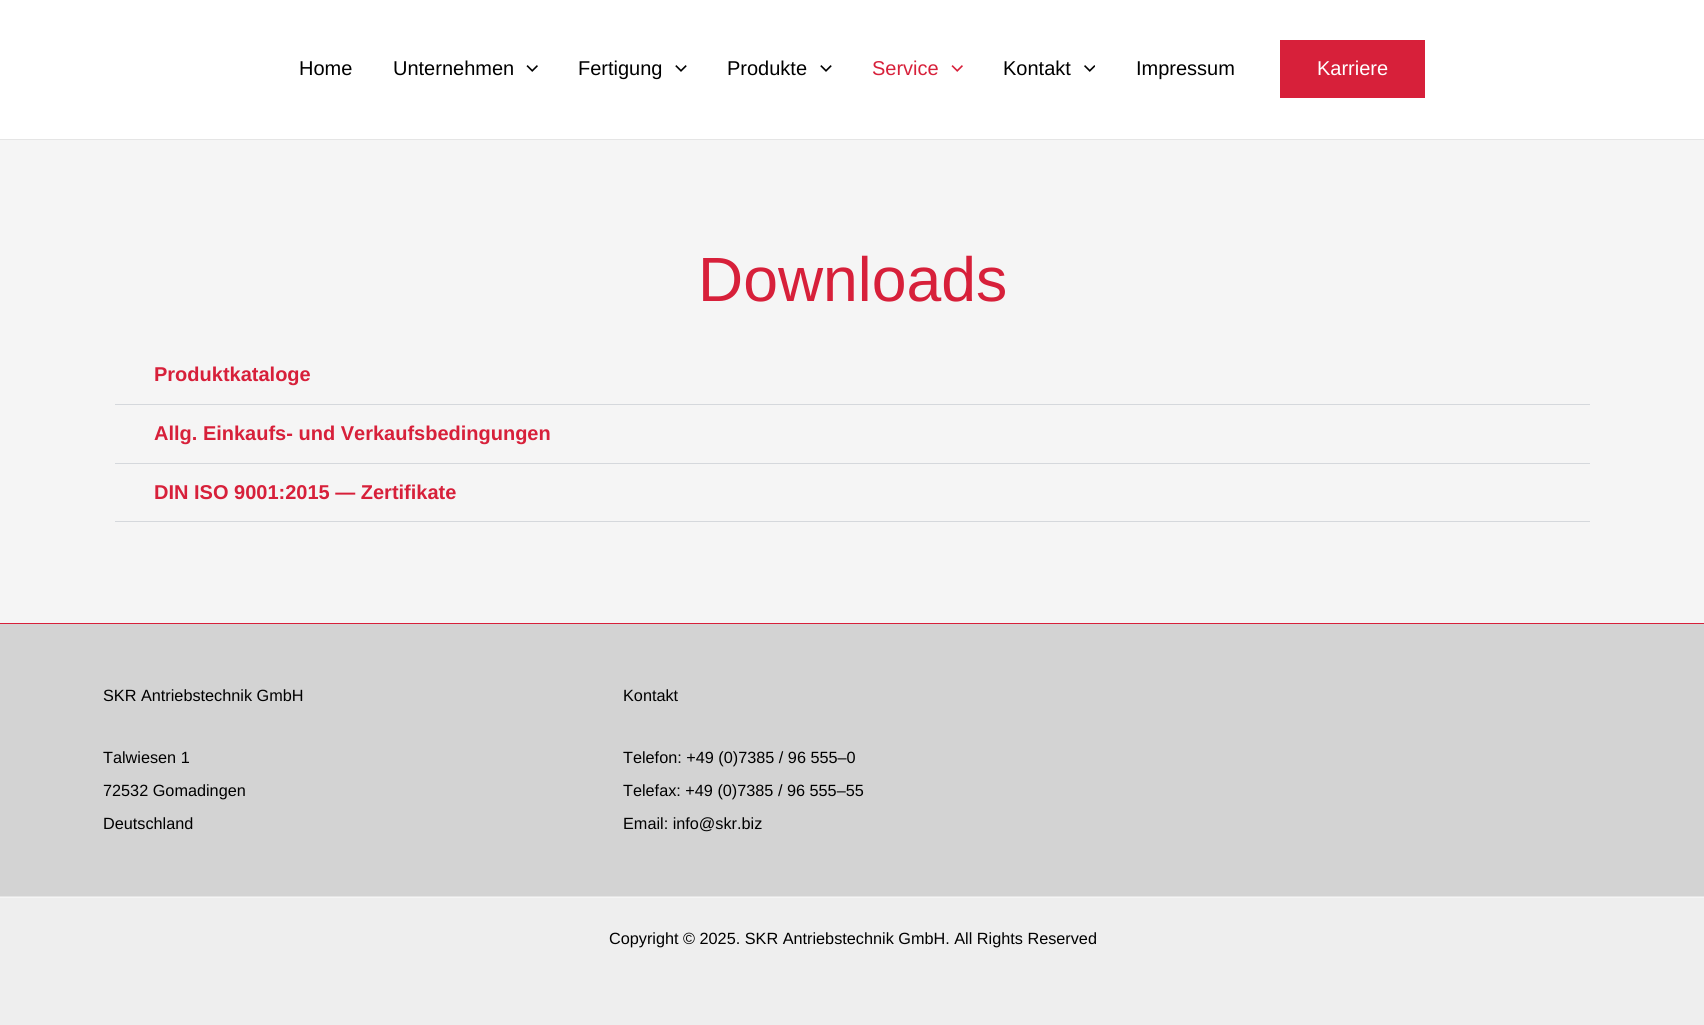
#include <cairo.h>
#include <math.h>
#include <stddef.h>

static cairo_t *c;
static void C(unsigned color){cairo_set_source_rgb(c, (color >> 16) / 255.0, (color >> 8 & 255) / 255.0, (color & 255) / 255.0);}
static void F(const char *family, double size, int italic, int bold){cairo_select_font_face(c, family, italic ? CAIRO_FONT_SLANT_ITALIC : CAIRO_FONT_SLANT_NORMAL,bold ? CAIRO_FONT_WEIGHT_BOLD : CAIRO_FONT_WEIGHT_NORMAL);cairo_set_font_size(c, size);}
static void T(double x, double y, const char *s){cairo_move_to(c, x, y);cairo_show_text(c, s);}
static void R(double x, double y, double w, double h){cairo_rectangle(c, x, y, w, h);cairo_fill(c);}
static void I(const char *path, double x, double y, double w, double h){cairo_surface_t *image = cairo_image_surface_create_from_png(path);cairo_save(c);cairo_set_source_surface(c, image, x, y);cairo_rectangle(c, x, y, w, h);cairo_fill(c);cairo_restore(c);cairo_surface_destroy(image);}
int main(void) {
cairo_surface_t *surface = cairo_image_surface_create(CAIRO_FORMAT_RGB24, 1704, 1025);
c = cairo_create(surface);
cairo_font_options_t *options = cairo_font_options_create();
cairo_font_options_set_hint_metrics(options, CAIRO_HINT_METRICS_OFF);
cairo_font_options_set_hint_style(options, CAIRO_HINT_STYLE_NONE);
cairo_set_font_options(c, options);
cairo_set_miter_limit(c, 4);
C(0xf5f5f5);
cairo_paint(c);
C(0xffffff);
R(0,0,1704,139);
C(0xe5e5e5);
R(0,139,1704,1);
F("Liberation Sans",20,0,0);
C(0x000000);
T(299,75,"Home");
T(393,75,"Unternehmen");
I("1.png",526,65,12,7);
T(578,75,"Fertigung");
I("2.png",675,65,12,7);
T(727,75,"Produkte");
I("2.png",820,65,12,7);
C(0xd7203a);
T(872,75,"Service");
I("3.png",951,65,12,7);
C(0x000000);
T(1003,75,"Kontakt");
I("4.png",1084,65,11,7);
T(1136,75,"Impressum");
C(0xd7203a);
R(1280,40,145,58);
C(0xffffff);
T(1317,75,"Karriere");
F("Liberation Sans",62.5,0,0);
C(0xd7203a);
T(698,301,"Downloads");
C(0xd5d8dc);
R(115,404,1475,1);
F("Liberation Sans",20,0,1);
C(0xd7203a);
T(154,381,"Produktkataloge");
C(0xd5d8dc);
R(115,463,1475,1);
C(0xd7203a);
T(154,440,"Allg. Einkaufs- und Verkaufsbedingungen");
C(0xd5d8dc);
R(115,521,1475,1);
C(0xd7203a);
T(154,499,"DIN ISO 9001:2015 — Zertifikate");
C(0xd3d3d3);
R(0,624,1704,272);
C(0xd7203a);
R(0,623,1704,1);
F("Liberation Sans",16.25,0,0);
C(0x000000);
T(103,701,"SKR Antriebstechnik GmbH");
T(103,763,"Talwiesen 1");
T(103,796,"72532 Gomadingen");
T(103,829,"Deutschland");
T(623,701,"Kontakt");
T(623,763,"Telefon: +49 (0)7385 / 96 555–0");
T(623,796,"Telefax: +49 (0)7385 / 96 555–55");
T(623,829,"Email: info@skr.biz");
C(0xeeeeee);
R(0,898,1704,127);
C(0xe5e5e5);
R(0,896,1704,1);
C(0x000000);
T(609,944,"Copyright © 2025. SKR Antriebstechnik GmbH. All Rights Reserved");
cairo_surface_write_to_png(surface, "o.png");
cairo_font_options_destroy(options);
cairo_destroy(c);
cairo_surface_destroy(surface);
return 0;
}
